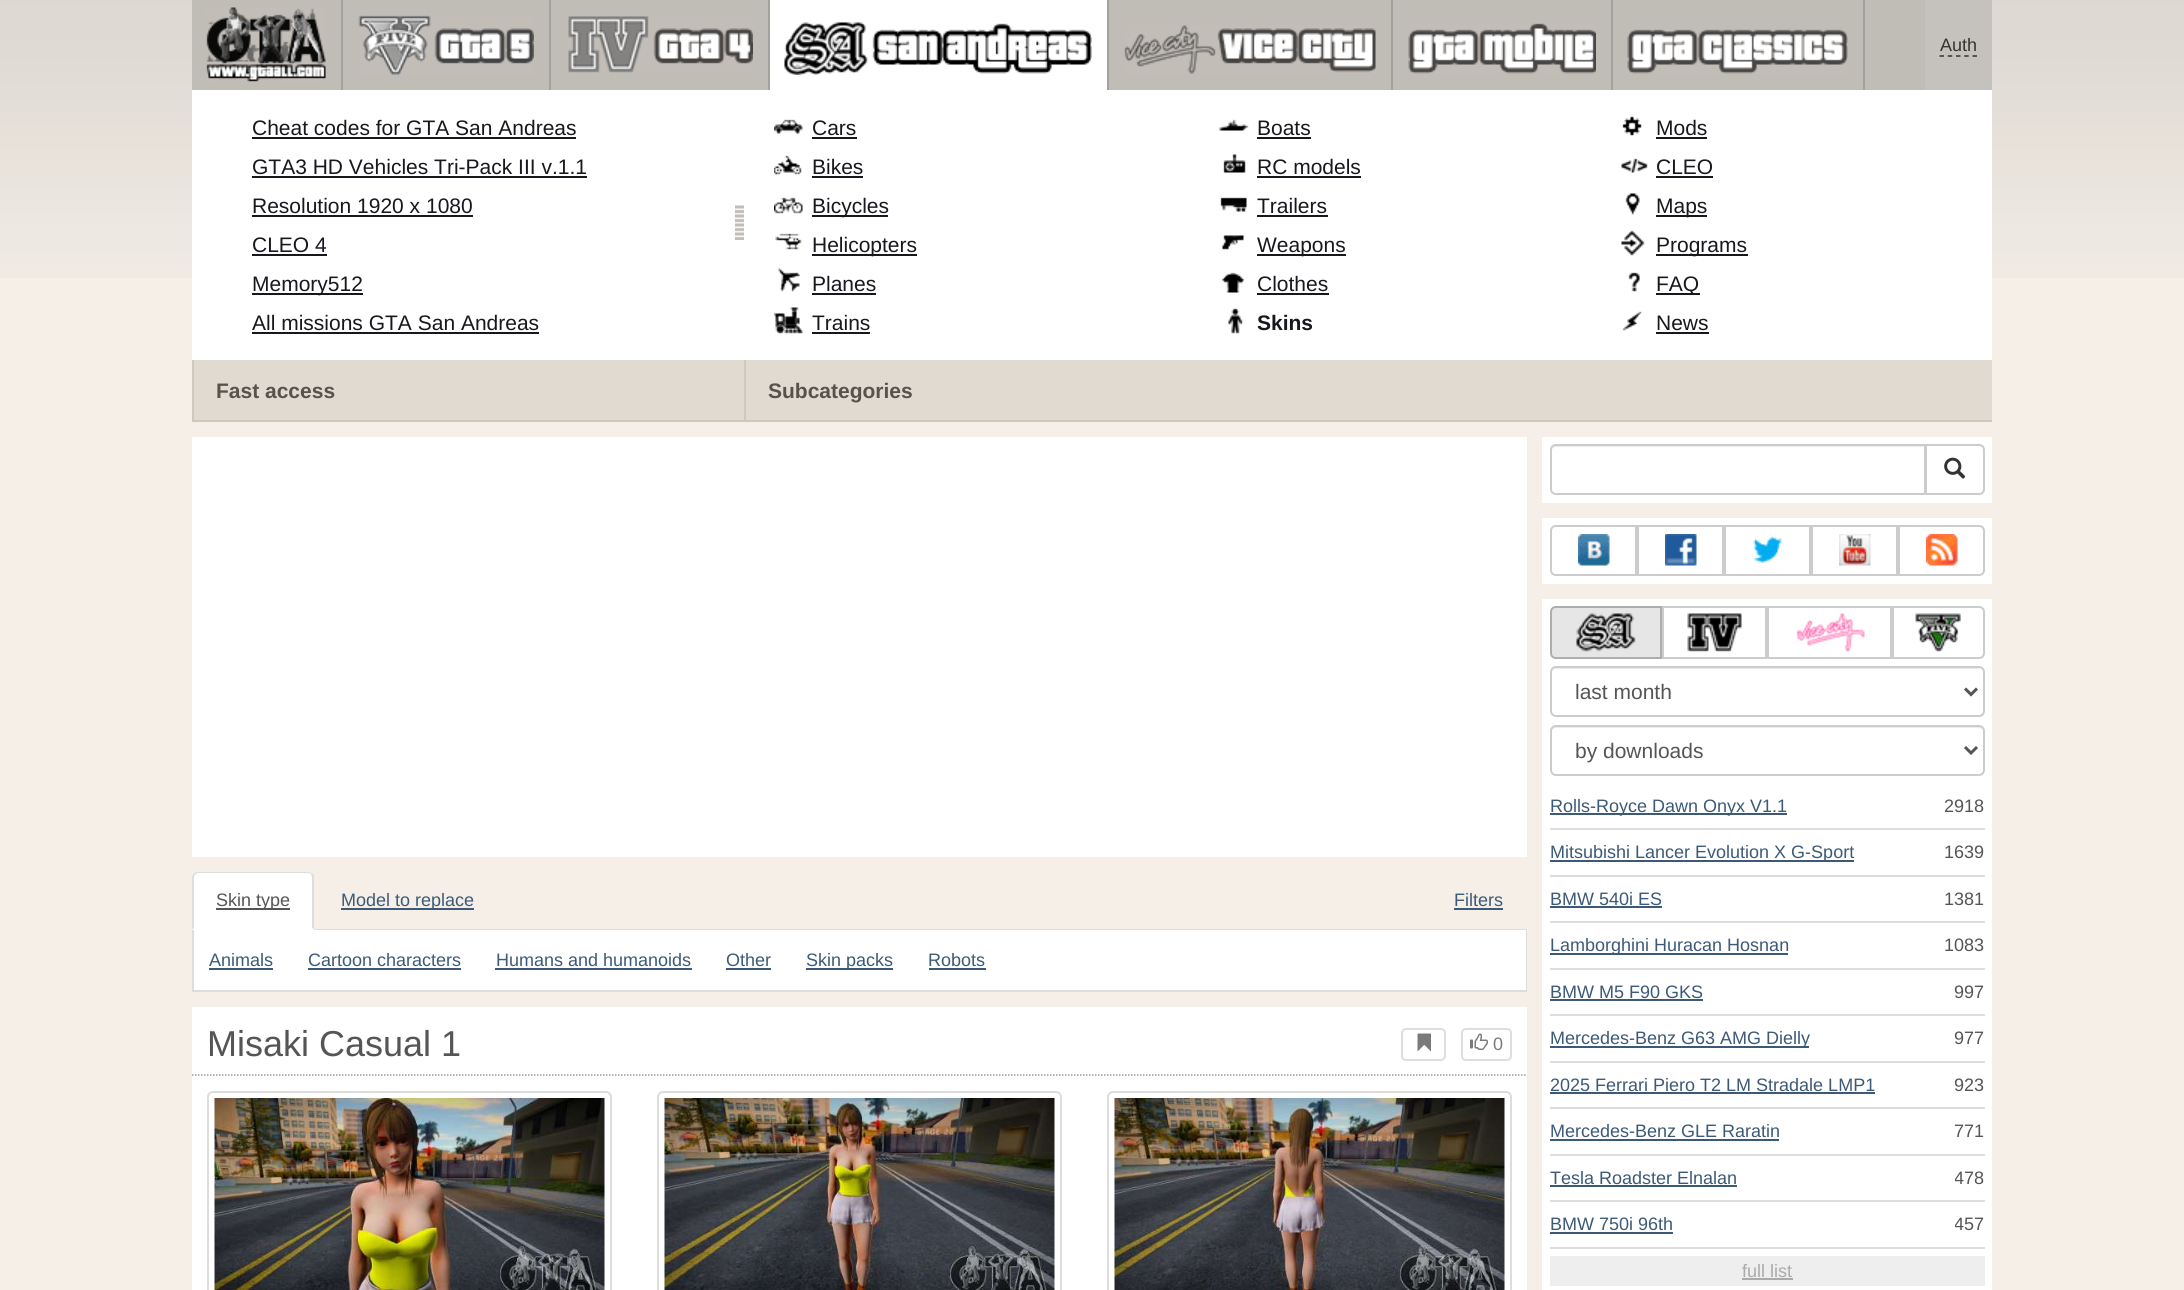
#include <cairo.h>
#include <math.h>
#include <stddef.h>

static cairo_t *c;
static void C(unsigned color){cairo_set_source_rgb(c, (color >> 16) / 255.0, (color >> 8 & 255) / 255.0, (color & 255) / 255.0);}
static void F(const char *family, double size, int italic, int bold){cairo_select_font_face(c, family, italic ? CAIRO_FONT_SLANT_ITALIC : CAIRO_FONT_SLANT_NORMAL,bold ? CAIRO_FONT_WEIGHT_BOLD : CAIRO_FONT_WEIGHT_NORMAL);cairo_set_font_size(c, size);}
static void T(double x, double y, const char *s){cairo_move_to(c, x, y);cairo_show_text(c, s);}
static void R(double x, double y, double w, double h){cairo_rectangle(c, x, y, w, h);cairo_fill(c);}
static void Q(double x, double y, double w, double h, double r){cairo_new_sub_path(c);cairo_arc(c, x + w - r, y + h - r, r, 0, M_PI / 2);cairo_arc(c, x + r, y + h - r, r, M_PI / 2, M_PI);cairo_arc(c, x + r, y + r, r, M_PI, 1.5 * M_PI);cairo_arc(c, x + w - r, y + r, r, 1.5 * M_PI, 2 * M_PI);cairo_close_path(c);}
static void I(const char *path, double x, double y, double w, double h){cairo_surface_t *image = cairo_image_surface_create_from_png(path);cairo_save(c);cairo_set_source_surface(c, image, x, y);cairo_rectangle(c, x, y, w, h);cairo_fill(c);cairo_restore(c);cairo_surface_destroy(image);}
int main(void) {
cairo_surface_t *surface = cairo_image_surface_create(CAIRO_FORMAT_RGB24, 2184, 1290);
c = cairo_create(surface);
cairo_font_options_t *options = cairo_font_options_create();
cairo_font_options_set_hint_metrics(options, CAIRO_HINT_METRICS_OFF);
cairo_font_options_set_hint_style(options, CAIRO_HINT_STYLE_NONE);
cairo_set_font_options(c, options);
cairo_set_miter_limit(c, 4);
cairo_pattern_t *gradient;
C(0xf5efe8);
cairo_paint(c);
I("1.png",0,0,2184,278);
C(0xc0bcb6);
R(192,0,1733,90);
C(0xa5a29d);
R(341,0,2,90);
I("2.png",206,7,120,75);
C(0xc5c2be);
R(1925,0,67,90);
F("Liberation Sans",18,0,0);
C(0x333333);
T(1940,51,"Auth");
cairo_new_path(c);
cairo_move_to(c,1939.5,56);
cairo_line_to(c,1977,56);
cairo_set_line_width(c,1.5);
cairo_set_dash(c,(double[]){4.5,3.75},2,0);
cairo_stroke(c);
C(0xa5a29d);
R(549,0,2,90);
I("3.png",358,15,176,60);
R(768,0,2,90);
I("4.png",568,16,185,57);
R(1391,0,2,90);
I("5.png",1124,25,252,49);
R(1611,0,2,90);
I("6.png",1408,23,188,51);
R(1863,0,2,90);
I("7.png",1627,29,221,45);
C(0xffffff);
R(770,0,337,90);
C(0xa5a29d);
R(1107,0,2,90);
I("8.png",784,22,308,53);
C(0xffffff);
R(192,90,1800,270);
C(0xcfc8bc);
R(192,420,1800,2);
I("9.png",735,205,9,35);
F("Liberation Sans",21,0,0);
C(0x18171d);
T(252,135,"Cheat codes for GTA San Andreas");
R(252,137,324,2);
T(252,174,"GTA3 HD Vehicles Tri-Pack III v.1.1");
R(252,176,335,2);
T(252,213,"Resolution 1920 x 1080");
R(252,215,221,2);
T(252,252,"CLEO 4");
R(252,254,75,2);
R(252,293,111,2);
T(252,291,"Memory512");
T(252,330,"All missions GTA San Andreas");
R(252,332,287,2);
C(0xe0dad1);
R(194,360,550,60);
C(0xcfc8bc);
R(192,360,2,60);
F("Liberation Sans",21,0,1);
C(0x57534b);
T(216,398,"Fast access");
I("10.png",774,119,29,15);
F("Liberation Sans",21,0,0);
C(0x18171d);
T(812,135,"Cars");
R(812,137,45,2);
I("11.png",774,155,28,20);
T(812,174,"Bikes");
R(812,176,51,2);
I("12.png",774,197,29,17);
R(812,215,76,2);
T(812,213,"Bicycles");
I("13.png",775,233,27,17);
R(812,254,105,2);
T(812,252,"Helicopters");
I("14.png",778,268,22,24);
T(812,291,"Planes");
R(812,293,64,2);
I("15.png",774,307,29,27);
T(812,330,"Trains");
R(812,332,58,2);
I("16.png",1219,119,30,12);
T(1257,135,"Boats");
R(1257,137,54,2);
I("17.png",1223,154,23,19);
T(1257,174,"RC models");
R(1257,176,104,2);
I("18.png",1220,197,27,15);
T(1257,213,"Trailers");
R(1257,215,71,2);
I("19.png",1222,235,22,15);
R(1257,254,89,2);
T(1257,252,"Weapons");
I("20.png",1222,272,22,21);
T(1257,291,"Clothes");
R(1257,293,72,2);
I("21.png",1228,308,15,26);
F("Liberation Sans",21,0,1);
T(1257,330,"Skins");
I("22.png",1622,116,20,20);
F("Liberation Sans",21,0,0);
T(1656,135,"Mods");
R(1656,137,51,2);
I("23.png",1621,158,27,15);
T(1656,174,"CLEO");
R(1656,176,57,2);
I("24.png",1625,193,15,22);
R(1656,215,51,2);
T(1656,213,"Maps");
I("25.png",1621,230,24,26);
R(1656,254,92,2);
T(1656,252,"Programs");
I("26.png",1628,272,12,20);
R(1656,293,44,2);
T(1656,291,"FAQ");
I("27.png",1622,311,20,20);
T(1656,330,"News");
R(1656,332,53,2);
C(0xe0dad1);
R(746,360,1246,60);
C(0xcfc8bc);
R(744,360,2,60);
F("Liberation Sans",21,0,1);
C(0x57534b);
T(768,398,"Subcategories");
C(0xffffff);
R(192,437,1335,420);
C(0xdddddd);
R(314,929,1213,1);
C(0xffffff);
cairo_new_path(c);
cairo_move_to(c,198,872);
cairo_line_to(c,308,872);
cairo_curve_to(c,311.5,872,314,874.5,314,878);
cairo_line_to(c,314,930);
cairo_line_to(c,192,930);
cairo_line_to(c,192,878);
cairo_curve_to(c,192,874.5,194.5,872,198,872);
cairo_close_path(c);
cairo_fill(c);
C(0xdddddd);
cairo_new_path(c);
cairo_move_to(c,198,872);
cairo_curve_to(c,197,872,195,872,194,873);
cairo_line_to(c,195,875);
cairo_curve_to(c,196,874,197,873,198,873);
cairo_line_to(c,308,873);
cairo_line_to(c,311,874);
cairo_line_to(c,312,873);
cairo_line_to(c,308,872);
cairo_close_path(c);
cairo_fill(c);
cairo_new_path(c);
cairo_move_to(c,312,873);
cairo_line_to(c,314,875);
cairo_line_to(c,314,930);
cairo_line_to(c,312,928);
cairo_line_to(c,312,878);
cairo_curve_to(c,312,876,311,875,311,874);
cairo_close_path(c);
cairo_fill(c);
C(0xffffff);
cairo_new_path(c);
cairo_move_to(c,314,930);
cairo_line_to(c,312,928);
cairo_line_to(c,194,928);
cairo_line_to(c,192,930);
cairo_close_path(c);
cairo_fill(c);
C(0xdddddd);
cairo_new_path(c);
cairo_move_to(c,192,930);
cairo_line_to(c,194,928);
cairo_line_to(c,194,878);
cairo_curve_to(c,194,877,194,875,195,875);
cairo_line_to(c,194,873);
cairo_curve_to(c,193,874,192,876,192,878);
cairo_close_path(c);
cairo_fill(c);
C(0x555555);
R(216,908,74,2);
F("Liberation Sans",18,0,0);
T(216,906,"Skin type");
C(0x3c5a78);
R(341,908,133,2);
T(341,906,"Model to replace");
T(1454,906,"Filters");
R(1454,908,49,2);
C(0xffffff);
R(194,930,1332,60);
C(0xdddddd);
R(1526,930,1,62);
R(192,990,1335,2);
R(192,930,2,62);
C(0x3c5a78);
T(209,966,"Animals");
R(209,968,64,2);
T(308,966,"Cartoon characters");
R(308,968,153,2);
T(496,966,"Humans and humanoids");
R(495,968,197,2);
T(726,966,"Other");
R(726,968,45,2);
R(806,968,87,2);
T(806,966,"Skin packs");
T(928,966,"Robots");
R(929,968,57,2);
C(0xffffff);
R(192,1007,1335,283);
F("Liberation Sans",36,0,0);
C(0x555555);
T(207,1056,"Misaki Casual 1");
Q(1402,1029,43,31,4);
C(0xdedede);
cairo_set_line_width(c,2);
cairo_set_dash(c,NULL,0,0);
cairo_stroke(c);
I("28.png",1417,1033,14,19);
Q(1462,1029,49,31,4);
cairo_stroke(c);
I("29.png",1470,1033,18,17);
F("Liberation Sans",18,0,0);
C(0x7a7a7a);
T(1493,1050,"0");
cairo_new_path(c);
cairo_move_to(c,192,1075);
cairo_line_to(c,1527,1075);
C(0x999999);
cairo_set_line_width(c,1.5);
cairo_set_dash(c,(double[]){1.5,1.5},2,0);
cairo_stroke(c);
Q(208,1092,403,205,5);
C(0xdddddd);
cairo_set_line_width(c,2);
cairo_set_dash(c,NULL,0,0);
cairo_stroke(c);
I("30.png",214,1098,391,192);
Q(658,1092,403,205,5);
cairo_stroke(c);
I("31.png",664,1098,391,192);
Q(1108,1092,403,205,5);
cairo_stroke(c);
I("32.png",1114,1098,391,192);
C(0xffffff);
R(1542,437,450,66);
C(0xececec);
cairo_new_path(c);
cairo_move_to(c,1556,447);
cairo_line_to(c,1924,447);
cairo_line_to(c,1924,494);
cairo_line_to(c,1925,494);
cairo_line_to(c,1925,446);
cairo_line_to(c,1556,446);
cairo_curve_to(c,1553,446,1551,448,1551,451);
cairo_line_to(c,1551,452);
cairo_curve_to(c,1551,449,1553,447,1556,447);
cairo_close_path(c);
cairo_fill(c);
cairo_new_path(c);
cairo_move_to(c,1556,445);
cairo_line_to(c,1925,445);
cairo_line_to(c,1925,494);
cairo_line_to(c,1556,494);
cairo_curve_to(c,1553,494,1551,492,1551,489);
cairo_line_to(c,1551,450);
cairo_curve_to(c,1551,447,1553,445,1556,445);
cairo_close_path(c);
C(0xcccccc);
cairo_stroke(c);
C(0xffffff);
cairo_new_path(c);
cairo_move_to(c,1926,445);
cairo_line_to(c,1979,445);
cairo_curve_to(c,1982,445,1984,447,1984,450);
cairo_line_to(c,1984,489);
cairo_curve_to(c,1984,492,1982,494,1979,494);
cairo_line_to(c,1926,494);
cairo_close_path(c);
cairo_fill_preserve(c);
C(0xcccccc);
cairo_stroke(c);
I("33.png",1944,457,22,22);
C(0xffffff);
R(1542,518,450,66);
cairo_new_path(c);
cairo_move_to(c,1556,526);
cairo_line_to(c,1636,526);
cairo_line_to(c,1636,575);
cairo_line_to(c,1556,575);
cairo_curve_to(c,1553,575,1551,573,1551,570);
cairo_line_to(c,1551,531);
cairo_curve_to(c,1551,528,1553,526,1556,526);
cairo_close_path(c);
C(0xcccccc);
cairo_stroke(c);
I("34.png",1578,534,32,32);
cairo_rectangle(c,1638,526,85,49);
cairo_stroke(c);
I("35.png",1665,534,32,32);
cairo_rectangle(c,1725,526,85,49);
cairo_stroke(c);
I("36.png",1753,536,30,27);
cairo_rectangle(c,1812,526,85,49);
cairo_stroke(c);
I("37.png",1839,534,32,32);
cairo_new_path(c);
cairo_move_to(c,1899,526);
cairo_line_to(c,1979,526);
cairo_curve_to(c,1982,526,1984,528,1984,531);
cairo_line_to(c,1984,570);
cairo_curve_to(c,1984,573,1982,575,1979,575);
cairo_line_to(c,1899,575);
cairo_close_path(c);
cairo_stroke(c);
I("38.png",1926,534,32,32);
C(0xffffff);
R(1542,599,450,691);
C(0xe6e6e6);
cairo_new_path(c);
cairo_move_to(c,1556,607);
cairo_line_to(c,1661,607);
cairo_line_to(c,1661,658);
cairo_line_to(c,1556,658);
cairo_curve_to(c,1553,658,1551,656,1551,653);
cairo_line_to(c,1551,612);
cairo_curve_to(c,1551,609,1553,607,1556,607);
cairo_close_path(c);
cairo_fill_preserve(c);
C(0xadadad);
cairo_stroke(c);
I("39.png",1576,613,60,39);
cairo_rectangle(c,1663,607,103,51);
C(0xcccccc);
cairo_stroke(c);
I("40.png",1687,613,55,39);
cairo_rectangle(c,1768,607,123,51);
cairo_stroke(c);
I("41.png",1796,613,69,39);
cairo_new_path(c);
cairo_move_to(c,1893,607);
cairo_line_to(c,1979,607);
cairo_curve_to(c,1982,607,1984,609,1984,612);
cairo_line_to(c,1984,653);
cairo_curve_to(c,1984,656,1982,658,1979,658);
cairo_line_to(c,1893,658);
cairo_close_path(c);
cairo_stroke(c);
I("42.png",1915,613,46,39);
C(0xececec);
cairo_new_path(c);
cairo_move_to(c,1556,669);
cairo_line_to(c,1978,669);
cairo_curve_to(c,1981,669,1983,671,1983,674);
cairo_curve_to(c,1983,671,1981,668,1978,668);
cairo_line_to(c,1556,668);
cairo_curve_to(c,1553,668,1551,671,1551,674);
cairo_curve_to(c,1551,671,1553,669,1556,669);
cairo_close_path(c);
cairo_fill(c);
Q(1551,667,433,49,5);
C(0xcccccc);
cairo_stroke(c);
cairo_new_path(c);
cairo_move_to(c,1965,688.5);
cairo_line_to(c,1971,694.5);
cairo_line_to(c,1977,688.5);
C(0x555555);
cairo_set_line_width(c,3);
cairo_stroke(c);
F("Liberation Sans",21,0,0);
T(1575,699,"last month");
C(0xececec);
cairo_new_path(c);
cairo_move_to(c,1556,728);
cairo_line_to(c,1978,728);
cairo_curve_to(c,1981,728,1983,730,1983,732);
cairo_curve_to(c,1983,729,1981,726,1978,726);
cairo_line_to(c,1556,726);
cairo_curve_to(c,1553,726,1551,729,1551,732);
cairo_curve_to(c,1551,730,1553,728,1556,728);
cairo_close_path(c);
cairo_fill(c);
Q(1551,726,433,49,5);
C(0xcccccc);
cairo_set_line_width(c,2);
cairo_stroke(c);
cairo_new_path(c);
cairo_move_to(c,1965,747);
cairo_line_to(c,1971,753);
cairo_line_to(c,1977,747);
C(0x555555);
cairo_set_line_width(c,3);
cairo_stroke(c);
T(1575,758,"by downloads");
C(0xdddddd);
R(1550,828,435,2);
C(0x3c5a78);
R(1550,813,237,2);
F("Liberation Sans",18,0,0);
T(1550,812,"Rolls-Royce Dawn Onyx V1.1");
C(0x555555);
T(1944,812,"2918");
C(0xdddddd);
R(1550,875,435,2);
C(0x3c5a78);
R(1550,860,304,2);
T(1550,858,"Mitsubishi Lancer Evolution X G-Sport");
C(0x555555);
T(1944,858,"1639");
C(0xdddddd);
R(1550,921,435,2);
C(0x3c5a78);
T(1550,905,"BMW 540i ES");
R(1550,906,112,2);
C(0x555555);
T(1944,905,"1381");
C(0xdddddd);
R(1550,968,435,2);
C(0x3c5a78);
R(1550,953,238,2);
T(1550,951,"Lamborghini Huracan Hosnan");
C(0x555555);
T(1944,951,"1083");
C(0xdddddd);
R(1550,1014,435,2);
C(0x3c5a78);
T(1550,998,"BMW M5 F90 GKS");
R(1550,999,153,2);
C(0x555555);
T(1954,998,"997");
C(0xdddddd);
R(1550,1061,435,2);
C(0x3c5a78);
R(1550,1046,259,2);
T(1550,1044,"Mercedes-Benz G63 AMG Dielly");
C(0x555555);
T(1954,1044,"977");
C(0xdddddd);
R(1550,1107,435,2);
C(0x3c5a78);
T(1550,1091,"2025 Ferrari Piero T2 LM Stradale LMP1");
R(1550,1092,325,2);
C(0x555555);
T(1954,1091,"923");
C(0xdddddd);
R(1550,1154,435,2);
C(0x3c5a78);
T(1550,1137,"Mercedes-Benz GLE Raratin");
R(1550,1139,229,2);
C(0x555555);
T(1954,1137,"771");
C(0xdddddd);
R(1550,1200,435,2);
C(0x3c5a78);
T(1550,1184,"Tesla Roadster Elnalan");
R(1550,1185,187,2);
C(0x555555);
T(1954,1184,"478");
gradient = cairo_pattern_create_linear(1880,1178,1955,1178);
cairo_pattern_add_color_stop_rgba(gradient,0,1,1,1,0);
cairo_pattern_add_color_stop_rgba(gradient,1,1,1,1,1);
cairo_set_source(c,gradient);
cairo_pattern_destroy(gradient);
R(1954,1179,1,3);
C(0xdddddd);
R(1550,1247,435,2);
C(0x3c5a78);
T(1550,1230,"BMW 750i 96th");
R(1550,1232,123,2);
C(0x555555);
T(1954,1230,"457");
gradient = cairo_pattern_create_linear(1880,1224,1955,1224);
cairo_pattern_add_color_stop_rgba(gradient,0,1,1,1,0);
cairo_pattern_add_color_stop_rgba(gradient,1,1,1,1,1);
cairo_set_source(c,gradient);
cairo_pattern_destroy(gradient);
R(1954,1225,1,3);
C(0xeeeeee);
R(1550,1256,435,30);
C(0xaaaaaa);
T(1742,1277,"full list");
R(1742,1278,51,2);
cairo_surface_write_to_png(surface, "o.png");
cairo_font_options_destroy(options);
cairo_destroy(c);
cairo_surface_destroy(surface);
return 0;
}
